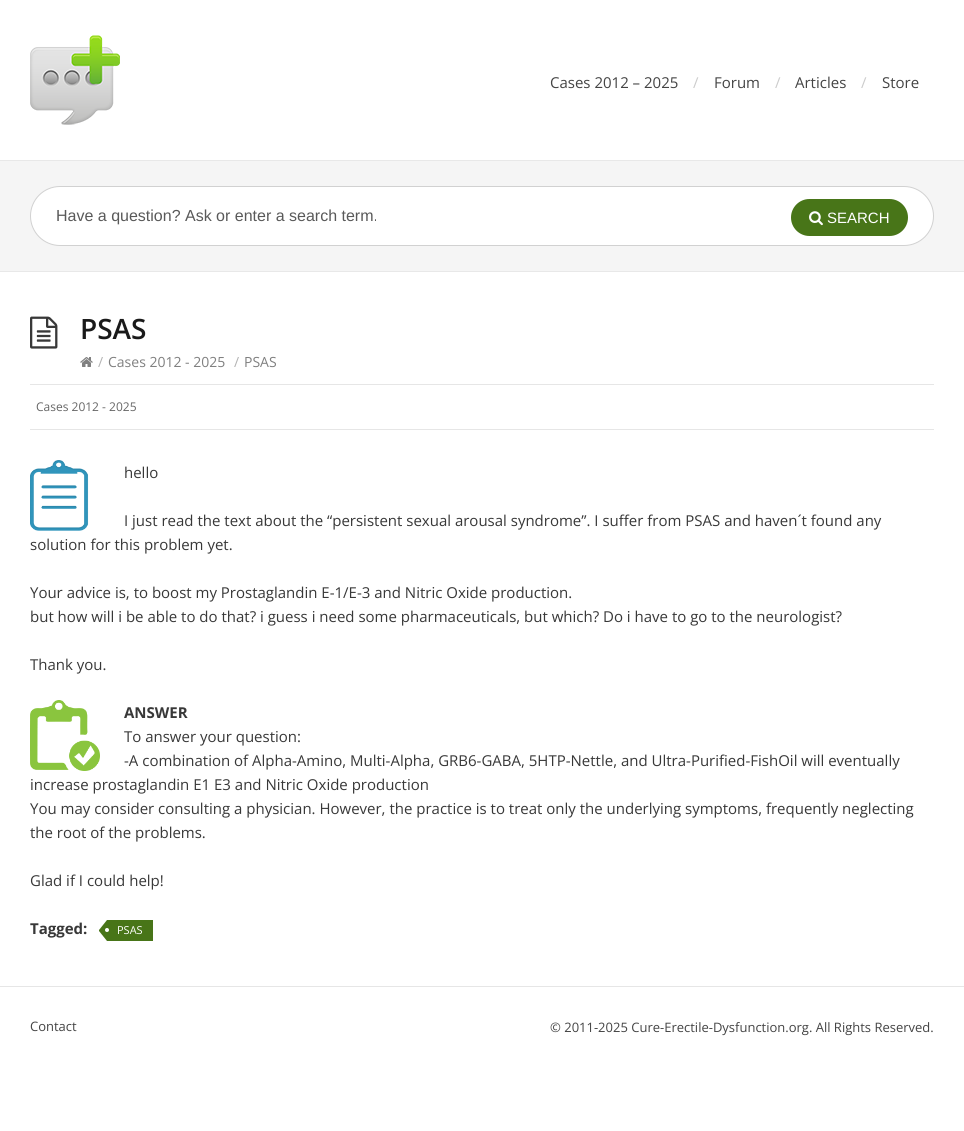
#include <cairo.h>
#include <math.h>
#include <stddef.h>

static cairo_t *c;
static void C(unsigned color){cairo_set_source_rgb(c, (color >> 16) / 255.0, (color >> 8 & 255) / 255.0, (color & 255) / 255.0);}
static void F(const char *family, double size, int italic, int bold){cairo_select_font_face(c, family, italic ? CAIRO_FONT_SLANT_ITALIC : CAIRO_FONT_SLANT_NORMAL,bold ? CAIRO_FONT_WEIGHT_BOLD : CAIRO_FONT_WEIGHT_NORMAL);cairo_set_font_size(c, size);}
static void T(double x, double y, const char *s){cairo_move_to(c, x, y);cairo_show_text(c, s);}
static void R(double x, double y, double w, double h){cairo_rectangle(c, x, y, w, h);cairo_fill(c);}
static void Q(double x, double y, double w, double h, double r){cairo_new_sub_path(c);cairo_arc(c, x + w - r, y + h - r, r, 0, M_PI / 2);cairo_arc(c, x + r, y + h - r, r, M_PI / 2, M_PI);cairo_arc(c, x + r, y + r, r, M_PI, 1.5 * M_PI);cairo_arc(c, x + w - r, y + r, r, 1.5 * M_PI, 2 * M_PI);cairo_close_path(c);}
static void I(const char *path, double x, double y, double w, double h){cairo_surface_t *image = cairo_image_surface_create_from_png(path);cairo_save(c);cairo_set_source_surface(c, image, x, y);cairo_rectangle(c, x, y, w, h);cairo_fill(c);cairo_restore(c);cairo_surface_destroy(image);}
int main(void) {
cairo_surface_t *surface = cairo_image_surface_create(CAIRO_FORMAT_RGB24, 964, 1131);
c = cairo_create(surface);
cairo_font_options_t *options = cairo_font_options_create();
cairo_font_options_set_hint_metrics(options, CAIRO_HINT_METRICS_OFF);
cairo_font_options_set_hint_style(options, CAIRO_HINT_STYLE_NONE);
cairo_set_font_options(c, options);
cairo_set_miter_limit(c, 4);
C(0xffffff);
cairo_paint(c);
I("1.png",30,35,90,90);
F("Open Sans",15,0,0);
C(0x444444);
T(550,88,"Cases 2012 – 2025");
C(0xcccccc);
T(693,88,"/");
C(0x444444);
T(714,88,"Forum");
C(0xcccccc);
T(775,88,"/");
C(0x444444);
T(795,88,"Articles");
C(0xcccccc);
T(861,88,"/");
C(0x444444);
T(882,88,"Store");
C(0xf5f5f5);
R(0,161,964,110);
C(0xe8e8e8);
R(0,160,964,1);
R(0,271,964,1);
C(0xffffff);
Q(30.5,186.5,903,59,29.5);
cairo_fill_preserve(c);
C(0xd1d1d1);
cairo_set_line_width(c,1);
cairo_stroke(c);
F("Liberation Sans",16,0,0);
C(0x595959);
T(56,221,"Have a question? Ask or enter a search term.");
C(0x487518);
Q(791,199,117,37,18.5);
cairo_fill(c);
I("2.png",809,211,14,15);
F("Liberation Sans",15,0,0);
C(0xffffff);
T(827,223,"SEARCH");
C(0xe6e6e6);
R(30,384,904,1);
I("3.png",30,316,28,33);
F("Open Sans SemiBold",28,0,0);
C(0x1a1a1a);
T(80,339,"PSAS");
I("4.png",80,357,13,10);
F("Open Sans",14,0,0);
C(0xb3b3b3);
T(98,367,"/");
C(0x808080);
T(108,367,"Cases 2012 - 2025");
C(0xb3b3b3);
T(234,367,"/");
C(0x808080);
T(244,367,"PSAS");
C(0xe6e6e6);
R(30,429,904,1);
F("Open Sans",12,0,0);
C(0x666666);
T(36,411,"Cases 2012 - 2025");
I("5.png",30,460,59,71);
F("Open Sans",15,0,0);
C(0x383838);
T(124,478,"hello");
T(124,526,"I just read the text about the “persistent sexual arousal syndrome”. I suffer from PSAS and haven´t found any");
T(30,550,"solution for this problem yet.");
T(30,598,"Your advice is, to boost my Prostaglandin E-1/E-3 and Nitric Oxide production.");
T(30,622,"but how will i be able to do that? i guess i need some pharmaceuticals, but which? Do i have to go to the neurologist?");
T(30,670,"Thank you.");
I("6.png",30,700,70,71);
F("Open Sans",15,0,1);
T(124,718,"ANSWER");
F("Open Sans",15,0,0);
T(124,742,"To answer your question:");
T(124,766,"-A combination of Alpha-Amino, Multi-Alpha, GRB6-GABA, 5HTP-Nettle, and Ultra-Purified-FishOil will eventually");
T(30,790,"increase prostaglandin E1 E3 and Nitric Oxide production");
T(30,814,"You may consider consulting a physician. However, the practice is to treat only the underlying symptoms, frequently neglecting");
T(30,838,"the root of the problems.");
T(30,886,"Glad if I could help!");
F("Open Sans",15,0,1);
T(30,934,"Tagged:");
C(0x487518);
R(107,920,46,21);
cairo_new_path(c);
cairo_move_to(c,107,920);
cairo_line_to(c,107,941);
cairo_line_to(c,99,931);
cairo_line_to(c,99,930);
cairo_close_path(c);
cairo_fill(c);
F("Open Sans",11,0,0);
C(0xffffff);
T(117,934,"PSAS");
cairo_new_path(c);
cairo_arc(c,107,930,2,0,2 * M_PI);
cairo_fill(c);
C(0xe6e6e6);
R(0,986,964,1);
F("Open Sans",13,0,0);
C(0x444444);
T(30,1031,"Contact");
T(550,1032,"© 2011-2025 Cure-Erectile-Dysfunction.org. All Rights Reserved.");
cairo_surface_write_to_png(surface, "o.png");
cairo_font_options_destroy(options);
cairo_destroy(c);
cairo_surface_destroy(surface);
return 0;
}
